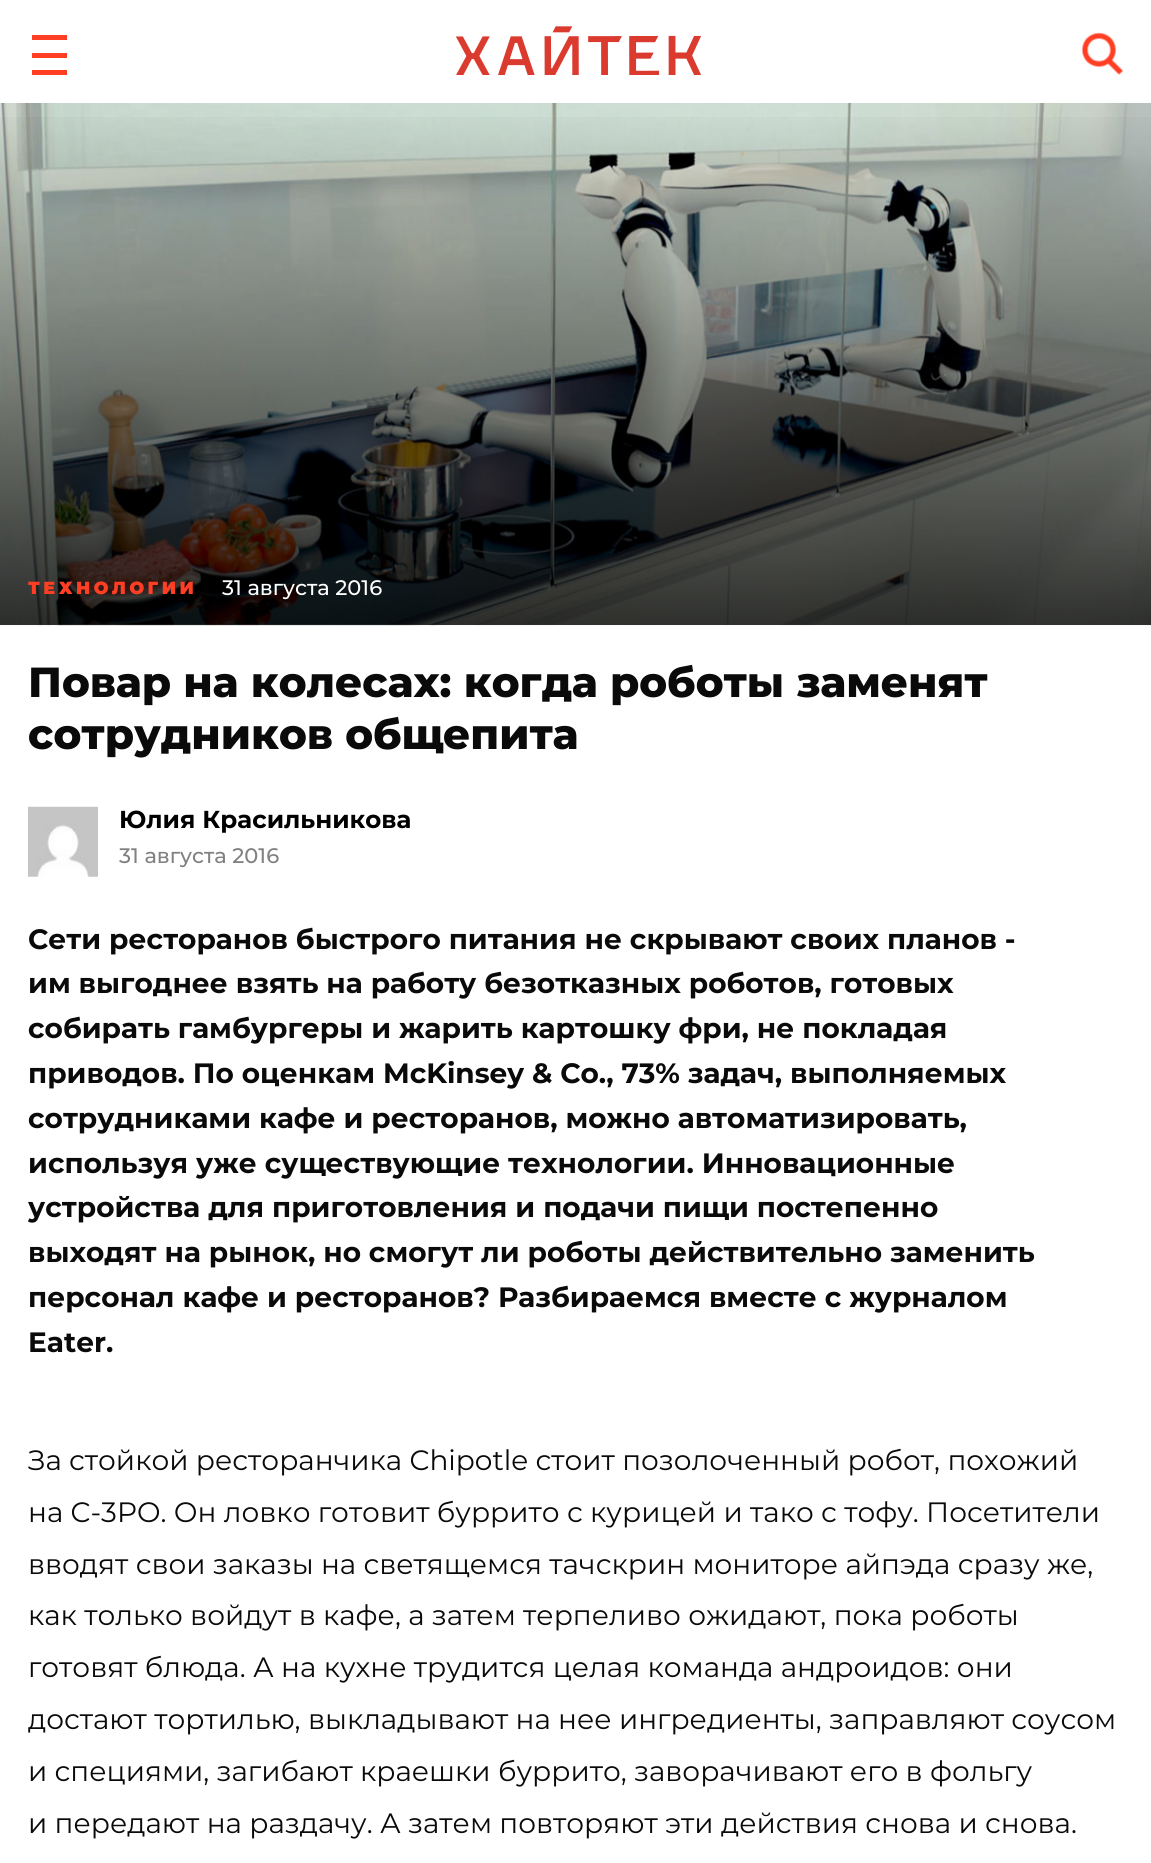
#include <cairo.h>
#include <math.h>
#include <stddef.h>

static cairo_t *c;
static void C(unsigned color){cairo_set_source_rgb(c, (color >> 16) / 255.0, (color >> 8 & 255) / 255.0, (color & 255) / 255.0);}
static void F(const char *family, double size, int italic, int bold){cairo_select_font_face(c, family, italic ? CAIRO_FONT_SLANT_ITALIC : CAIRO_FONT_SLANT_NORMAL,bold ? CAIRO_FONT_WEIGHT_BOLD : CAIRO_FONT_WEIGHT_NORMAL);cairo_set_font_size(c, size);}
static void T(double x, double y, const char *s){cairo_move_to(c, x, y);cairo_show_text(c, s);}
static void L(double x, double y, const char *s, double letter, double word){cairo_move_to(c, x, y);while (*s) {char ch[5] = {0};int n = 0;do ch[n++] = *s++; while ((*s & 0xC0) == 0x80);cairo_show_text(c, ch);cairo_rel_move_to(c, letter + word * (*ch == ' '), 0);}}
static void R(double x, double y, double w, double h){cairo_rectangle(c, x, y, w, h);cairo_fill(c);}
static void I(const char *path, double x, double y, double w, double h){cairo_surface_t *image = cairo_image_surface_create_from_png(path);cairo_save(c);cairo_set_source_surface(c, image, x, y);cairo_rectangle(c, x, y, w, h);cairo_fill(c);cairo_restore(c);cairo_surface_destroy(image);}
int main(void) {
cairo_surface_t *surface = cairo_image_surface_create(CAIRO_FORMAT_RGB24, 1151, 1863);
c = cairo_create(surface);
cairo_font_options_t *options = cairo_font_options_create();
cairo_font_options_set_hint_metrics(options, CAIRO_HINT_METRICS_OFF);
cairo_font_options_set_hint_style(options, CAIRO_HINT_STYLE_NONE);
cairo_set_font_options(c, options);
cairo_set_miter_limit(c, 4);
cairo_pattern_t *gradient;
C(0xffffff);
cairo_paint(c);
C(0xff3e24);
R(32,53,35,5);
R(32,35,35,5);
R(32,70,35,5);
I("1.png",455,26,246,49);
I("2.png",1081,32,42,43);
C(0xf2f2f2);
R(0,624,1151,1);
I("3.png",0,103,1151,523);
gradient = cairo_pattern_create_linear(576,103,576,625);
cairo_pattern_add_color_stop_rgba(gradient,0,0,0,0,0);
cairo_pattern_add_color_stop_rgba(gradient,1,0,0,0,.78);
cairo_set_source(c,gradient);
cairo_pattern_destroy(gradient);
R(0,117,1151,508);
F("Montserrat Black",17.5,0,0);
C(0xff3e24);
L(28,594,"ТЕХНОЛОГИИ",3.5,0);
F("Montserrat Medium",21,0,0);
C(0xffffff);
T(222,595,"31 августа 2016");
F("Montserrat ExtraBold",42,0,0);
C(0x0a0a0a);
T(28,697,"Повар на колесах: когда роботы заменят");
T(28,749,"сотрудников общепита");
I("4.png",28,806,70,71);
F("Montserrat",24.5,0,1);
C(0x000000);
T(119,828,"Юлия Красильникова");
F("Montserrat Medium",21,0,0);
C(0x818183);
T(119,863,"31 августа 2016");
F("Montserrat",28,0,1);
C(0x0a0a0a);
T(28,949,"Сети ресторанов быстрого питания не скрывают своих планов -");
T(28,993,"им выгоднее взять на работу безотказных роботов, готовых");
T(28,1038,"собирать гамбургеры и жарить картошку фри, не покладая");
T(28,1083,"приводов. По оценкам McKinsey & Co., 73% задач, выполняемых");
T(28,1128,"сотрудниками кафе и ресторанов, можно автоматизировать,");
T(28,1173,"используя уже существующие технологии. Инновационные");
T(28,1217,"устройства для приготовления и подачи пищи постепенно");
T(28,1262,"выходят на рынок, но смогут ли роботы действительно заменить");
T(28,1307,"персонал кафе и ресторанов? Разбираемся вместе с журналом");
T(28,1352,"Eater.");
F("Montserrat",28,0,0);
T(28,1470,"За стойкой ресторанчика Chipotle стоит позолоченный робот, похожий");
T(28,1522,"на C-3PO. Он ловко готовит буррито с курицей и тако с тофу. Посетители");
T(28,1574,"вводят свои заказы на светящемся тачскрин мониторе айпэда сразу же,");
T(28,1625,"как только войдут в кафе, а затем терпеливо ожидают, пока роботы");
T(28,1677,"готовят блюда. А на кухне трудится целая команда андроидов: они");
T(28,1729,"достают тортилью, выкладывают на нее ингредиенты, заправляют соусом");
T(28,1781,"и специями, загибают краешки буррито, заворачивают его в фольгу");
T(28,1833,"и передают на раздачу. А затем повторяют эти действия снова и снова.");
cairo_surface_write_to_png(surface, "o.png");
cairo_font_options_destroy(options);
cairo_destroy(c);
cairo_surface_destroy(surface);
return 0;
}
